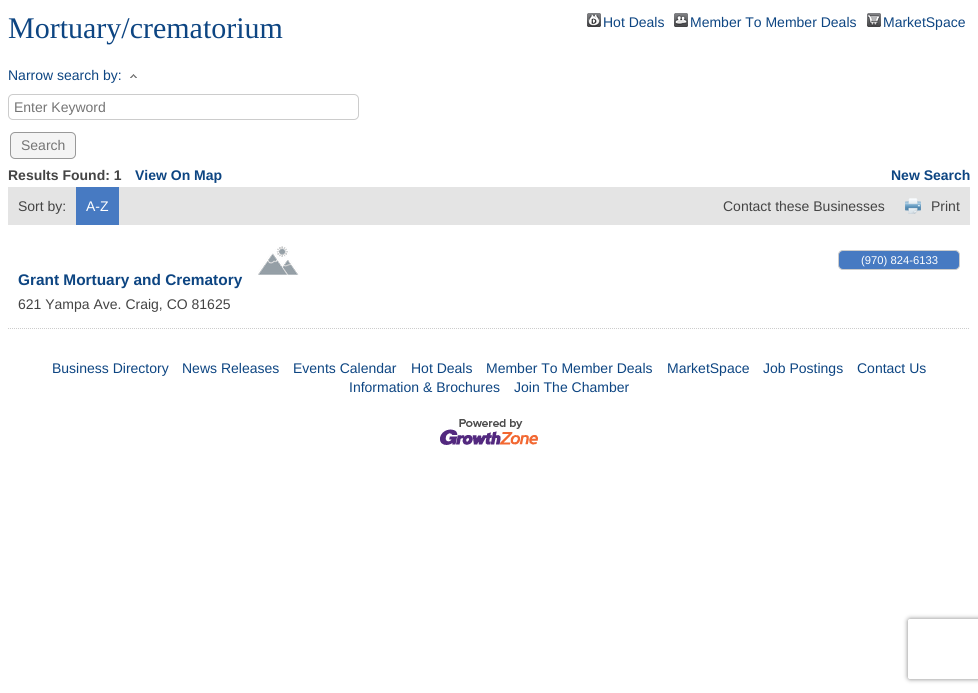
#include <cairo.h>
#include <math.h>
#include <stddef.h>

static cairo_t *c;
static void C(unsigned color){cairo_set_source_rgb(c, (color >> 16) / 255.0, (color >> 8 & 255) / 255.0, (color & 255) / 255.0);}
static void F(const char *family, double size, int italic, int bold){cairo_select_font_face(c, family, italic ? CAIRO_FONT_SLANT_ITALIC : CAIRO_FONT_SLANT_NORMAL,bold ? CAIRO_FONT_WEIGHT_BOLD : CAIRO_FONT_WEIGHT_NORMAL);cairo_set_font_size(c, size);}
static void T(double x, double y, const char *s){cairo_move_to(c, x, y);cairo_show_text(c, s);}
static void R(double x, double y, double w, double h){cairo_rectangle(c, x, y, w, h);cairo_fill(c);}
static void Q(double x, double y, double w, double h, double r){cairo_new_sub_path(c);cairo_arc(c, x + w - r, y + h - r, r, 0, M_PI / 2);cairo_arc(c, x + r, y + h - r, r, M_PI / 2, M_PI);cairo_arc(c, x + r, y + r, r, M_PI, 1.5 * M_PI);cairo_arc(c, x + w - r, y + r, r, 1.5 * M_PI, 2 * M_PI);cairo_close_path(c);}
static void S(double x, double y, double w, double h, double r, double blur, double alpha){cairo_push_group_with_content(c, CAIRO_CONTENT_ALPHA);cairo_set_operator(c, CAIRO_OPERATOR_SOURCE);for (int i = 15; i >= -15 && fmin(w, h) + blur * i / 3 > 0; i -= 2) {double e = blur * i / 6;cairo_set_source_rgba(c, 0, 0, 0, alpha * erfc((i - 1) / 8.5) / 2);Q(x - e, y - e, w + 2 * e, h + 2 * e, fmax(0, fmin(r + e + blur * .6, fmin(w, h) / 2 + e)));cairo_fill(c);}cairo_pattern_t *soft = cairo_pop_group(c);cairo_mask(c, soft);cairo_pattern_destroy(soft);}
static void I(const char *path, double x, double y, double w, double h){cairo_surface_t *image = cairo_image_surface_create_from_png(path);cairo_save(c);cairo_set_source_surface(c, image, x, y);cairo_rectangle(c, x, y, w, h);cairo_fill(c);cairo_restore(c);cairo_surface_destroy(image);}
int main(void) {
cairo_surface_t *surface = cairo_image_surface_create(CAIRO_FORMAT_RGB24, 978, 693);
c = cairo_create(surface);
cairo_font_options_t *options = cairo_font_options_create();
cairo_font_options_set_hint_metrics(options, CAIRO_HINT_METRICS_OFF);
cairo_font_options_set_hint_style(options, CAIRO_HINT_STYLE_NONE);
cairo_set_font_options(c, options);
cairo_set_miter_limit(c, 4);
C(0xffffff);
cairo_paint(c);
F("Liberation Serif",30,0,0);
C(0x0d4582);
T(8,38,"Mortuary/crematorium");
I("1.png",587,13,14,14);
F("Liberation Sans",14,0,0);
T(603,27,"Hot Deals");
I("2.png",674,13,14,14);
T(690,27,"Member To Member Deals");
I("3.png",867,13,14,14);
T(883,27,"MarketSpace");
T(8,80,"Narrow search by:");
I("4.png",130,74,7,4);
Q(8.5,94.5,350,25,4.5);
C(0xcccccc);
cairo_set_line_width(c,1);
cairo_stroke(c);
C(0x757575);
T(14,112,"Enter Keyword");
C(0xf4f4f4);
Q(10.5,132.5,65,26,4.5);
cairo_fill_preserve(c);
C(0x999999);
cairo_stroke(c);
C(0x757575);
T(21,150,"Search");
F("Liberation Sans",14,0,1);
C(0x444444);
T(8,180,"Results Found: 1");
C(0x0d4582);
T(135,180,"View On Map");
T(891,180,"New Search");
C(0xe4e4e4);
R(8,187,962,38);
F("Liberation Sans",14,0,0);
C(0x444444);
T(18,211,"Sort by:");
C(0x477ac2);
R(76,187,43,38);
C(0xffffff);
T(86,211,"A-Z");
C(0x444444);
T(723,211,"Contact these Businesses");
I("5.png",905,198,16,16);
T(931,211,"Print");
cairo_new_path(c);
cairo_move_to(c,8,328.5);
cairo_line_to(c,970,328.5);
C(0xcccccc);
cairo_set_dash(c,(double[]){1,1},2,0);
cairo_stroke(c);
C(0x477ac2);
Q(838.5,250.5,121,19,4.5);
cairo_fill_preserve(c);
C(0xcccccc);
cairo_set_dash(c,NULL,0,0);
cairo_stroke(c);
F("Liberation Sans",11.25,0,0);
C(0xffffff);
T(861,264,"(970) 824-6133");
I("6.png",258,246,41,29);
F("Liberation Sans",15.4,0,1);
C(0x0d4582);
T(18,285,"Grant Mortuary and Crematory");
F("Liberation Sans",14,0,0);
C(0x444444);
T(18,309,"621 Yampa Ave. Craig, CO 81625");
C(0x0d4582);
T(52,373,"Business Directory");
T(182,373,"News Releases");
T(293,373,"Events Calendar");
T(411,373,"Hot Deals");
T(486,373,"Member To Member Deals");
T(667,373,"MarketSpace");
T(763,373,"Job Postings");
T(857,373,"Contact Us");
T(349,392,"Information & Brochures");
T(514,392,"Join The Chamber");
I("7.png",440,419,98,26);
cairo_save(c);
cairo_set_fill_rule(c,CAIRO_FILL_RULE_EVEN_ODD);
cairo_new_path(c);
cairo_move_to(c,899,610);
cairo_line_to(c,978,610);
cairo_line_to(c,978,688);
cairo_line_to(c,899,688);
cairo_close_path(c);
cairo_move_to(c,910,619);
cairo_line_to(c,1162,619);
cairo_curve_to(c,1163,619,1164,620,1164,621);
cairo_line_to(c,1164,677);
cairo_curve_to(c,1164,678,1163,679,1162,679);
cairo_line_to(c,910,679);
cairo_curve_to(c,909,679,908,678,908,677);
cairo_line_to(c,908,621);
cairo_curve_to(c,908,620,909,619,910,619);
cairo_close_path(c);
cairo_clip(c);
C(0x808080);
S(908,619,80,60,2,2.5,1);
cairo_restore(c);
cairo_surface_write_to_png(surface, "o.png");
cairo_font_options_destroy(options);
cairo_destroy(c);
cairo_surface_destroy(surface);
return 0;
}
